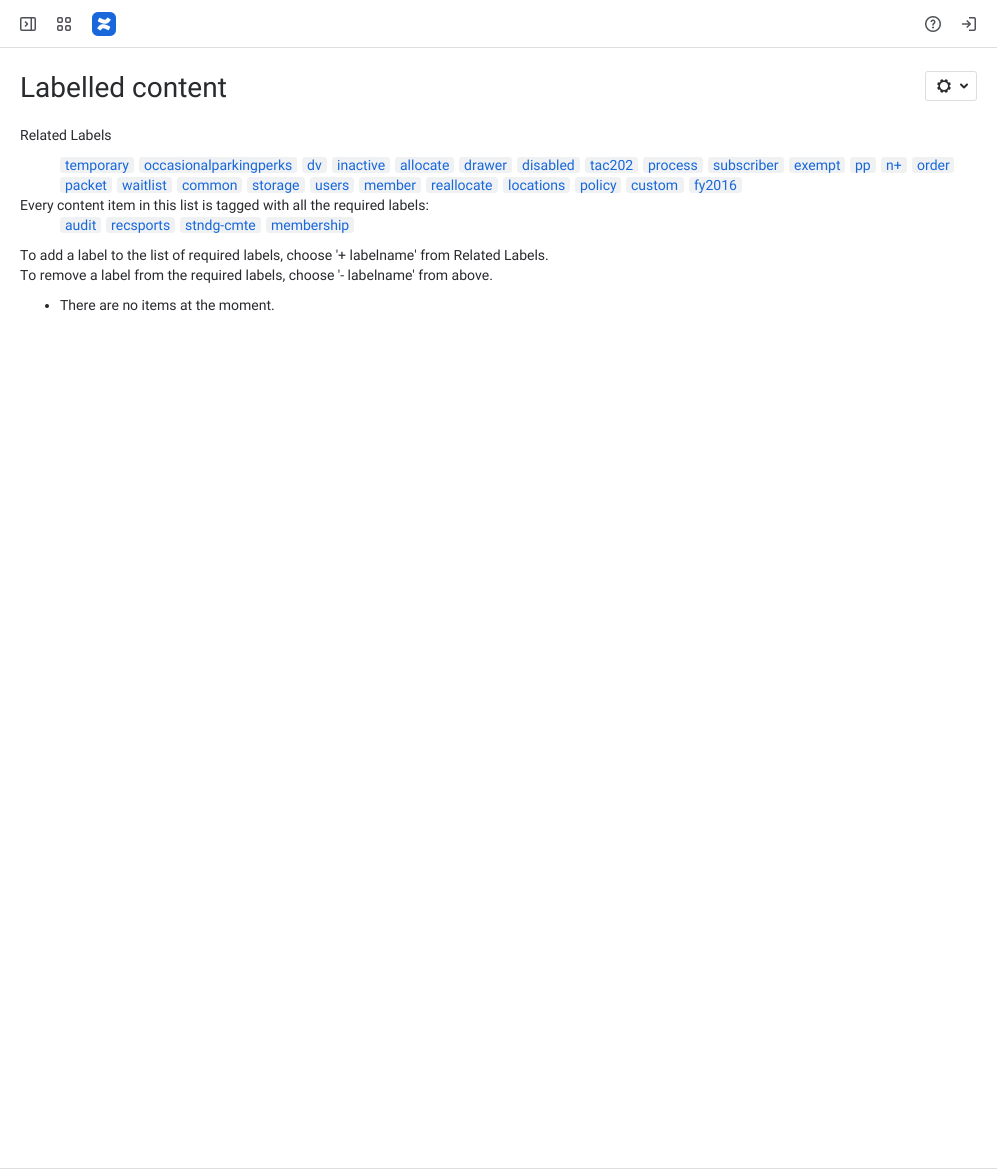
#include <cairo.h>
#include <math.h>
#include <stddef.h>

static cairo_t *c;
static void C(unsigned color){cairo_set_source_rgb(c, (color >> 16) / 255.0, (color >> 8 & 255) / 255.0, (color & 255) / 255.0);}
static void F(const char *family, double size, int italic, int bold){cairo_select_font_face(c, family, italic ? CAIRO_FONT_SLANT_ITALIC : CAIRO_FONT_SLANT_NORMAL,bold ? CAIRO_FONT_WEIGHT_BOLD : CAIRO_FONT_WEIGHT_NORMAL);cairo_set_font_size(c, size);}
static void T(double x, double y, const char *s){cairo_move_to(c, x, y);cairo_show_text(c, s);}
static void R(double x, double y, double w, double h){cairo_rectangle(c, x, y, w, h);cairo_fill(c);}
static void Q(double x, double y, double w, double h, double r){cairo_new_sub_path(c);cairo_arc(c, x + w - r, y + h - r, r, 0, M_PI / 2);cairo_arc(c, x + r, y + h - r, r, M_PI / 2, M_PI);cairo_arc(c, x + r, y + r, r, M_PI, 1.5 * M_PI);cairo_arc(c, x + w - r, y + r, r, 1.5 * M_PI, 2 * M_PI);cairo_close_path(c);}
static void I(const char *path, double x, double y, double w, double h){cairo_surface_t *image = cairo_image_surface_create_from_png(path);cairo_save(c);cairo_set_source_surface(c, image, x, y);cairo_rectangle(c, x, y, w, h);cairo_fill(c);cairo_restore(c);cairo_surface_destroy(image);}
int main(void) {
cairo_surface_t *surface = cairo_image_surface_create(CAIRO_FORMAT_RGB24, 997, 1169);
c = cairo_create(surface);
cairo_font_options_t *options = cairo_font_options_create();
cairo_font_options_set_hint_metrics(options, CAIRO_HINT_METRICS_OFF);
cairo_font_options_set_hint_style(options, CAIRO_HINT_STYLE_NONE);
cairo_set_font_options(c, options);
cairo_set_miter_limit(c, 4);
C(0xffffff);
cairo_paint(c);
C(0xdddedd);
R(0,47,997,1);
I("1.png",20,17,16,14);
I("2.png",57,17,14,14);
I("3.png",92,12,24,24);
I("4.png",925,16,16,16);
I("5.png",962,17,14,14);
R(0,1168,997,1);
F("Roboto",28,0,0);
C(0x292a2e);
T(20,97,"Labelled content");
Q(925.5,71.5,51,29,2.5);
C(0xdddedd);
cairo_set_line_width(c,1);
cairo_stroke(c);
I("6.png",937,79,14,14);
I("7.png",960,83,8,6);
F("Roboto",14,0,0);
C(0x292a2e);
T(20,140,"Related Labels");
C(0xf0f1f2);
Q(60,157,74,16,3);
cairo_fill(c);
C(0x1868db);
T(65,170,"temporary");
C(0xf0f1f2);
Q(139,157,158,16,3);
cairo_fill(c);
C(0x1868db);
T(144,170,"occasionalparkingperks");
C(0xf0f1f2);
Q(302,157,25,16,3);
cairo_fill(c);
C(0x1868db);
T(307,170,"dv");
C(0xf0f1f2);
Q(332,157,58,16,3);
cairo_fill(c);
C(0x1868db);
T(337,170,"inactive");
C(0xf0f1f2);
Q(395,157,59,16,3);
cairo_fill(c);
C(0x1868db);
T(400,170,"allocate");
C(0xf0f1f2);
Q(459,157,53,16,3);
cairo_fill(c);
C(0x1868db);
T(464,170,"drawer");
C(0xf0f1f2);
Q(517,157,63,16,3);
cairo_fill(c);
C(0x1868db);
T(522,170,"disabled");
C(0xf0f1f2);
Q(585,157,53,16,3);
cairo_fill(c);
C(0x1868db);
T(590,170,"tac202");
C(0xf0f1f2);
Q(643,157,60,16,3);
cairo_fill(c);
C(0x1868db);
T(648,170,"process");
C(0xf0f1f2);
Q(708,157,76,16,3);
cairo_fill(c);
C(0x1868db);
T(713,170,"subscriber");
C(0xf0f1f2);
Q(789,157,56,16,3);
cairo_fill(c);
C(0x1868db);
T(794,170,"exempt");
C(0xf0f1f2);
Q(850,157,26,16,3);
cairo_fill(c);
C(0x1868db);
T(855,170,"pp");
C(0xf0f1f2);
Q(881,157,26,16,3);
cairo_fill(c);
C(0x1868db);
T(886,170,"n+");
C(0xf0f1f2);
Q(912,157,42,16,3);
cairo_fill(c);
C(0x1868db);
T(917,170,"order");
C(0xf0f1f2);
Q(60,177,52,16,3);
cairo_fill(c);
C(0x1868db);
T(65,190,"packet");
C(0xf0f1f2);
Q(117,177,55,16,3);
cairo_fill(c);
C(0x1868db);
T(122,190,"waitlist");
C(0xf0f1f2);
Q(177,177,65,16,3);
cairo_fill(c);
C(0x1868db);
T(182,190,"common");
C(0xf0f1f2);
Q(247,177,58,16,3);
cairo_fill(c);
C(0x1868db);
T(252,190,"storage");
C(0xf0f1f2);
Q(310,177,44,16,3);
cairo_fill(c);
C(0x1868db);
T(315,190,"users");
C(0xf0f1f2);
Q(359,177,62,16,3);
cairo_fill(c);
C(0x1868db);
T(364,190,"member");
C(0xf0f1f2);
Q(426,177,72,16,3);
cairo_fill(c);
C(0x1868db);
T(431,190,"reallocate");
C(0xf0f1f2);
Q(503,177,67,16,3);
cairo_fill(c);
C(0x1868db);
T(508,190,"locations");
C(0xf0f1f2);
Q(575,177,46,16,3);
cairo_fill(c);
C(0x1868db);
T(580,190,"policy");
C(0xf0f1f2);
Q(626,177,58,16,3);
cairo_fill(c);
C(0x1868db);
T(631,190,"custom");
C(0xf0f1f2);
Q(689,177,53,16,3);
cairo_fill(c);
C(0x1868db);
T(694,190,"fy2016");
C(0x292a2e);
T(20,210,"Every content item in this list is tagged with all the required labels:");
C(0xf0f1f2);
Q(60,217,41,16,3);
cairo_fill(c);
C(0x1868db);
T(65,230,"audit");
C(0xf0f1f2);
Q(106,217,69,16,3);
cairo_fill(c);
C(0x1868db);
T(111,230,"recsports");
C(0xf0f1f2);
Q(180,217,81,16,3);
cairo_fill(c);
C(0x1868db);
T(185,230,"stndg-cmte");
C(0xf0f1f2);
Q(266,217,88,16,3);
cairo_fill(c);
C(0x1868db);
T(271,230,"membership");
C(0x292a2e);
T(20,260,"To add a label to the list of required labels, choose '+ labelname' from Related Labels.");
T(20,280,"To remove a label from the required labels, choose '- labelname' from above.");
cairo_new_path(c);
cairo_arc(c,47,306,2,0,2 * M_PI);
cairo_fill(c);
T(60,310,"There are no items at the moment.");
cairo_surface_write_to_png(surface, "o.png");
cairo_font_options_destroy(options);
cairo_destroy(c);
cairo_surface_destroy(surface);
return 0;
}
